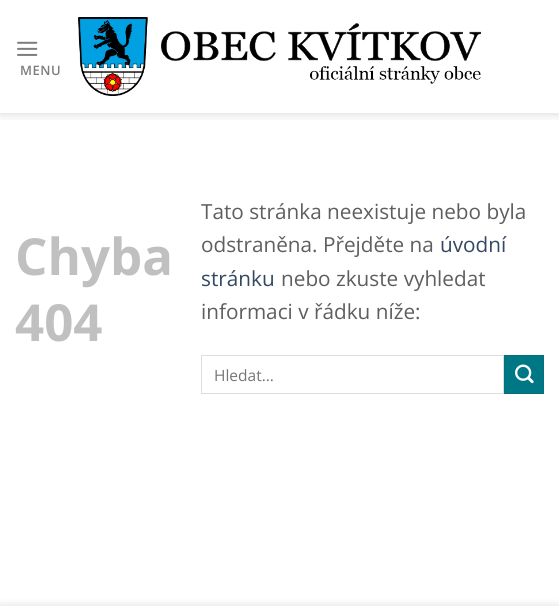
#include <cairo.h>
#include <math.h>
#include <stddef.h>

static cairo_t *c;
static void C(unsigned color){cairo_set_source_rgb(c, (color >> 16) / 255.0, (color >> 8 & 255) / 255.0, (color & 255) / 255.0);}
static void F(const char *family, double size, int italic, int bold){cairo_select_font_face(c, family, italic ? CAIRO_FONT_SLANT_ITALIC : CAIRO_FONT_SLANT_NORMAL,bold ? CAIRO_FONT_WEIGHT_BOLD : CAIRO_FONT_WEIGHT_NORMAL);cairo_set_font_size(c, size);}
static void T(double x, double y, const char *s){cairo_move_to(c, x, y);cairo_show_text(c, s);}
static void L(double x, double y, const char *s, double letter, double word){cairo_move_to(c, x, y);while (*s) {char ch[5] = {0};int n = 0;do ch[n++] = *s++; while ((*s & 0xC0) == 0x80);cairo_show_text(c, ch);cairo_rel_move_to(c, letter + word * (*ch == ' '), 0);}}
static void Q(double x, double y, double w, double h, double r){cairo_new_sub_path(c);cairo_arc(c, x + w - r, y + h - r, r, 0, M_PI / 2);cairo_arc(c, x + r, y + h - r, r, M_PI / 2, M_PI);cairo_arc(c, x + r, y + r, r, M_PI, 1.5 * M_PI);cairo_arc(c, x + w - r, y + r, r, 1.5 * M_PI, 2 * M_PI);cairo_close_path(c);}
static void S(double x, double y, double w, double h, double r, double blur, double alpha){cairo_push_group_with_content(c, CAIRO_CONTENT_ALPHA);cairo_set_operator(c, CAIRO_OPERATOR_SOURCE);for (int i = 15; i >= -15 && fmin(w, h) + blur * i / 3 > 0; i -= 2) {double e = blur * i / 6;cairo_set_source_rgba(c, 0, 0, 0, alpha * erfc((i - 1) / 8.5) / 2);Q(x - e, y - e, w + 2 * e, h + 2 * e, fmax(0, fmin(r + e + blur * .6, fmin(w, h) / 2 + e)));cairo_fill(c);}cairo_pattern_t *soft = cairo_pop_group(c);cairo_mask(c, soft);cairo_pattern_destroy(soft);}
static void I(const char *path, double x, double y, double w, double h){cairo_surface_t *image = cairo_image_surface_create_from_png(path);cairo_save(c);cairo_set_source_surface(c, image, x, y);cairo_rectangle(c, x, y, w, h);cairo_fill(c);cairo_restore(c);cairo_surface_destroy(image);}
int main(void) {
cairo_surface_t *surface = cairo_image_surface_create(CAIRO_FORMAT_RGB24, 559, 606);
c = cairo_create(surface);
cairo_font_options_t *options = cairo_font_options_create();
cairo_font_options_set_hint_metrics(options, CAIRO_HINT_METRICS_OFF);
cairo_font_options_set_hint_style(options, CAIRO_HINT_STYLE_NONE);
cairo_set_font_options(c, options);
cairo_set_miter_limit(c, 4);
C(0xffffff);
cairo_paint(c);
cairo_save(c);
cairo_rectangle(c,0,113,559,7);
cairo_clip(c);
C(0x000000);
S(1,1,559,113,0,5,.15);
cairo_restore(c);
I("1.png",17,41,21,15);
F("Open Sans SemiBold",13,0,0);
C(0x7d7d7d);
L(20,75,"MENU",.5,0);
I("2.png",78,17,403,79);
F("Open Sans",51,0,1);
C(0xc0c0c0);
T(15,275,"Chyba");
T(15,341,"404");
F("Open Sans",20.75,0,0);
C(0x5e5e5e);
T(201,219,"Tato stránka neexistuje nebo byla");
T(201,252,"odstraněna. Přejděte na");
C(0x334862);
T(440,252,"úvodní");
T(201,286,"stránku");
C(0x5e5e5e);
T(281,286,"nebo zkuste vyhledat");
T(201,319,"informaci v řádku níže:");
cairo_rectangle(c,201.5,355.5,302,38);
C(0xdddddd);
cairo_set_line_width(c,1);
cairo_stroke(c);
F("Open Sans",15.5,0,0);
C(0x757575);
T(214,381,"Hledat...");
C(0x007784);
cairo_rectangle(c,504.5,355.5,39,38);
cairo_fill_preserve(c);
C(0x00717d);
cairo_stroke(c);
I("3.png",515,364,19,20);
C(0x000000);
S(0,606,559,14,0,4.5,.14);
cairo_surface_write_to_png(surface, "o.png");
cairo_font_options_destroy(options);
cairo_destroy(c);
cairo_surface_destroy(surface);
return 0;
}
